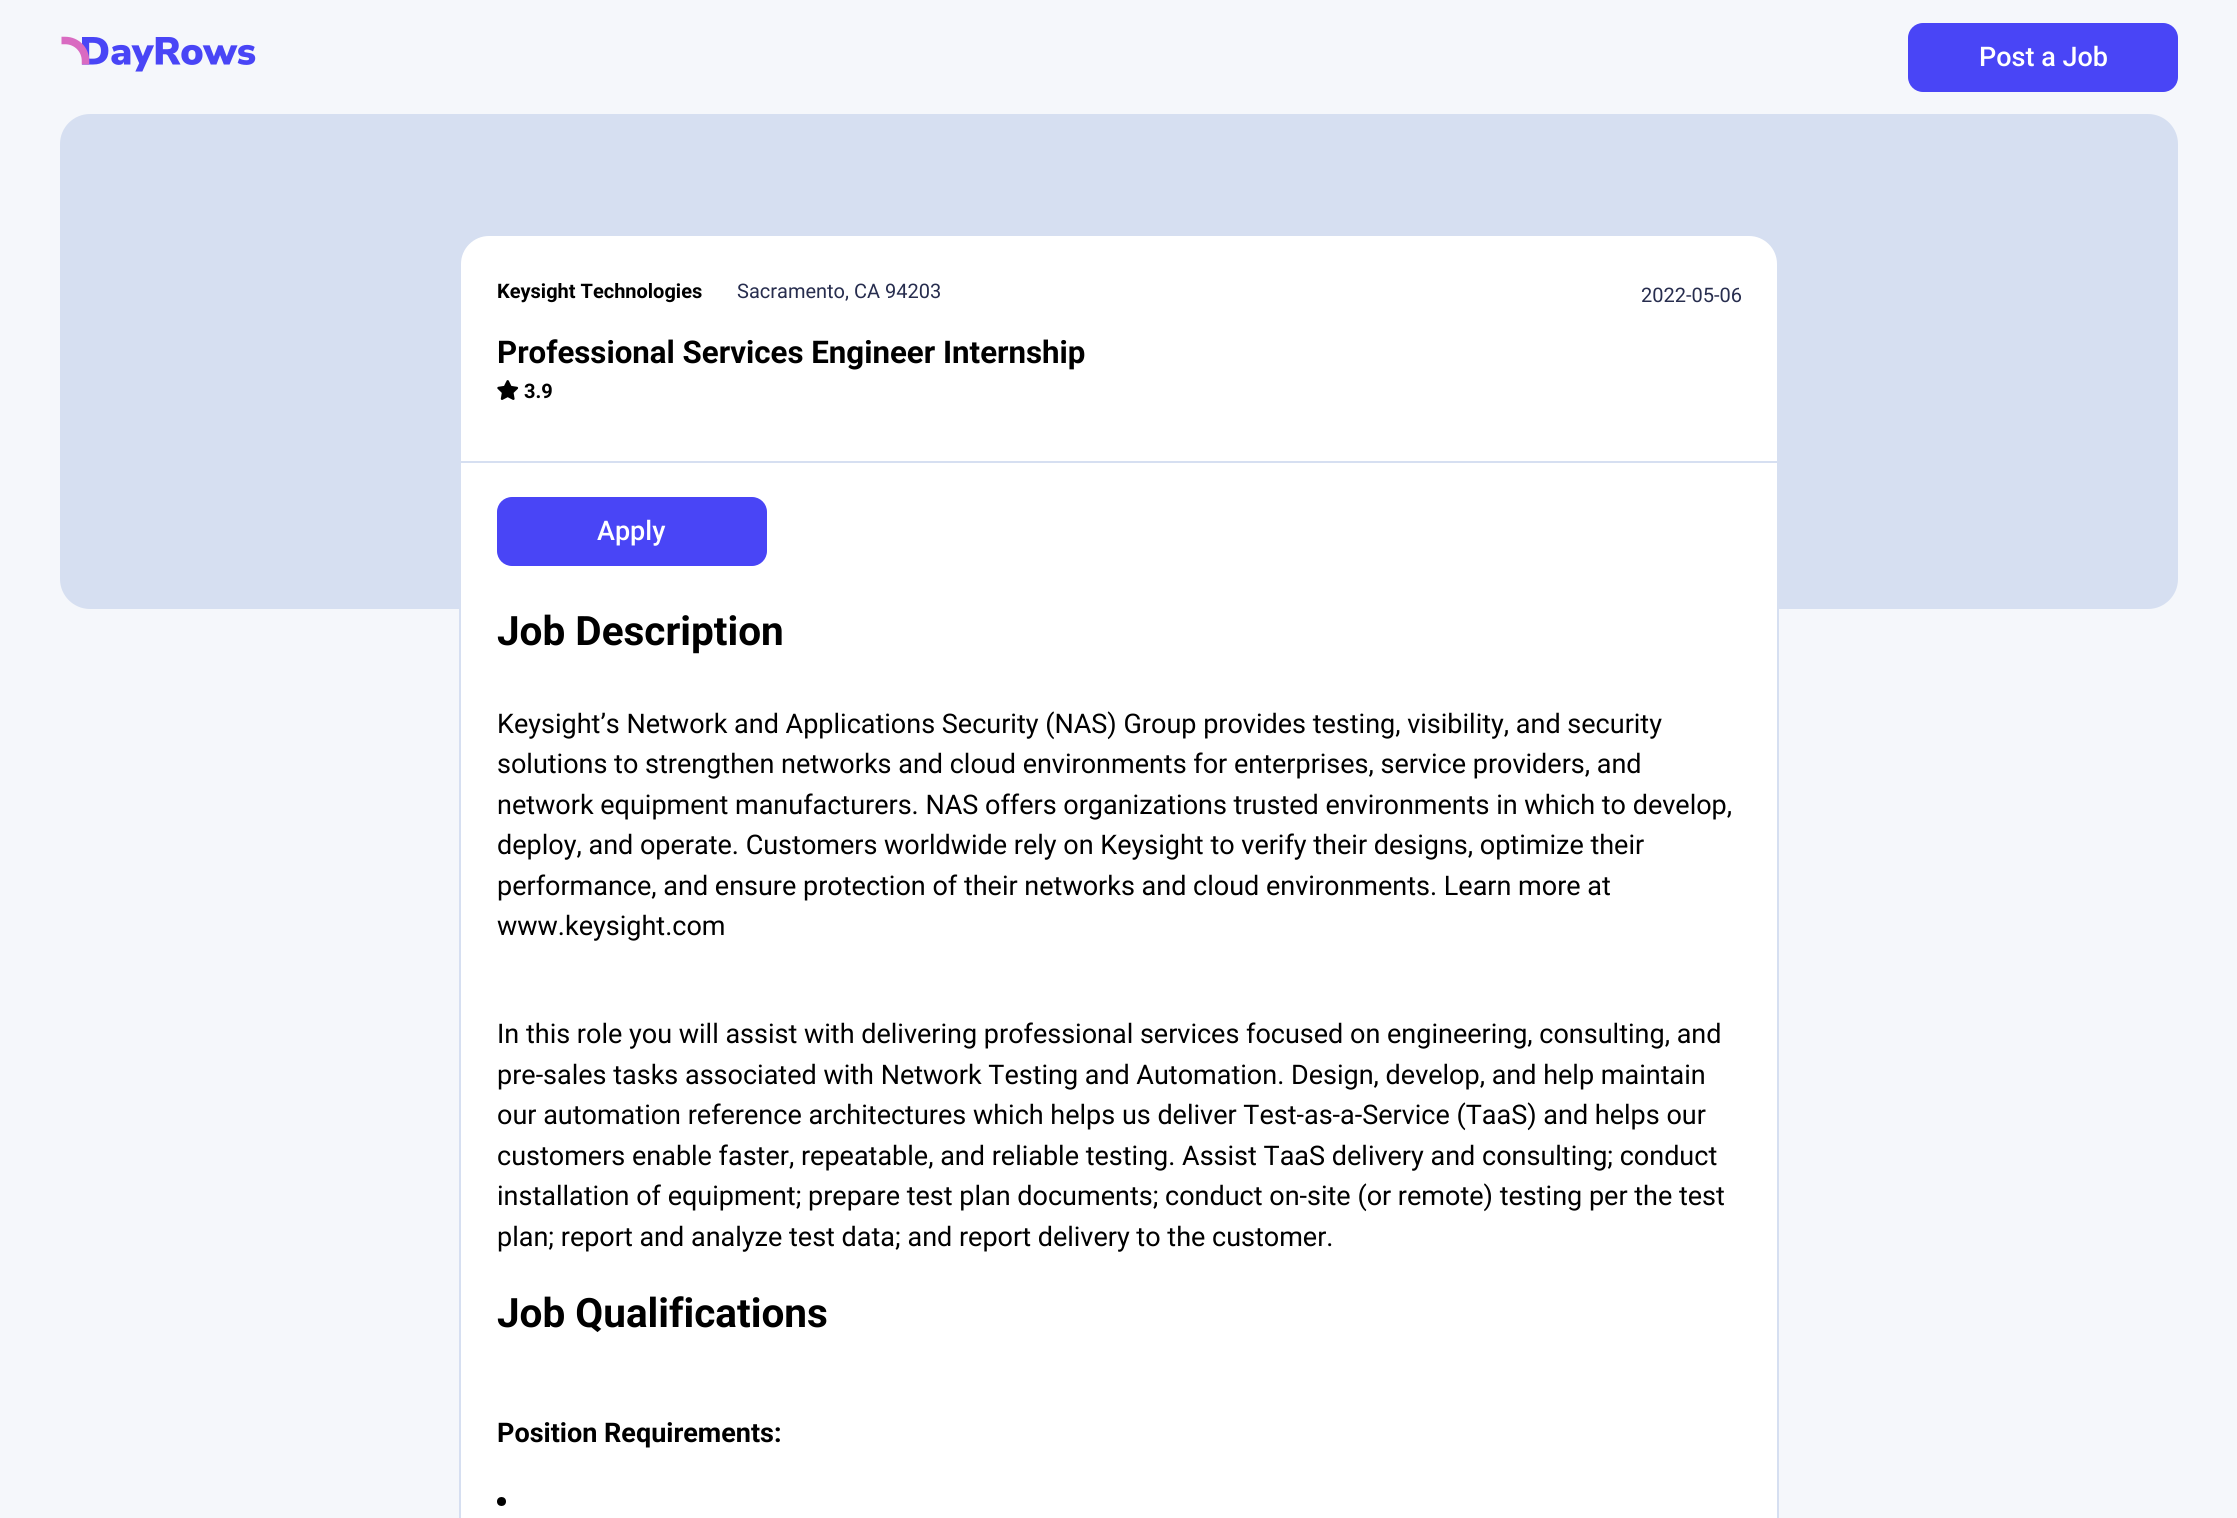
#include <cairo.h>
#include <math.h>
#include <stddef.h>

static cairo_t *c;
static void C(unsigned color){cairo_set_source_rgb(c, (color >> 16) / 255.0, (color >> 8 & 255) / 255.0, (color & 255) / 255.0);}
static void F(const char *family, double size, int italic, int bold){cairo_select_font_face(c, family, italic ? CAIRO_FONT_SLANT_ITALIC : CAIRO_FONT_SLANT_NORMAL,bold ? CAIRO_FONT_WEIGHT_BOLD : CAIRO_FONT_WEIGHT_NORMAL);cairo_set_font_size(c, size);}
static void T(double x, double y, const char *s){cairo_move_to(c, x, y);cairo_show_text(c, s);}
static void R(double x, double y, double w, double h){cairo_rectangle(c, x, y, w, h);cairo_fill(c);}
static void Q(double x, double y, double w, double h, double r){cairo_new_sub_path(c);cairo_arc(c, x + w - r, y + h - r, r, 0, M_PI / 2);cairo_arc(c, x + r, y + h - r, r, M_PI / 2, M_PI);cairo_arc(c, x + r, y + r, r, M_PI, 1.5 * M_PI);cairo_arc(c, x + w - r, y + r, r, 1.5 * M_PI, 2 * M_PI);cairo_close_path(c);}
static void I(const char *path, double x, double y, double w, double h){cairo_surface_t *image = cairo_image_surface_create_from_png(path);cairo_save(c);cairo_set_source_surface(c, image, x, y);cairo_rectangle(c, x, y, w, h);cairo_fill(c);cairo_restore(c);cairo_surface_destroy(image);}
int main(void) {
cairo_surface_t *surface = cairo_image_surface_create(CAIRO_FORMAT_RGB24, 2237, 1518);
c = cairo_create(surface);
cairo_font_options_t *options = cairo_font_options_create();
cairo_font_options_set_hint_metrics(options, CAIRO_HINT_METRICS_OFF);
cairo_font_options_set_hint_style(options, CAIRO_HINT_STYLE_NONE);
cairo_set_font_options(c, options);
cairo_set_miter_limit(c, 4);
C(0xf5f7fb);
cairo_paint(c);
I("1.png",61,36,195,36);
C(0x4945f6);
Q(1908,23,270,69,15);
cairo_fill(c);
F("Roboto Medium",27,0,0);
C(0xffffff);
T(1979,66,"Post a Job");
C(0xd6dff1);
Q(60,114,2118,495,30);
cairo_fill(c);
C(0xffffff);
Q(460,235,1318,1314,29);
cairo_fill_preserve(c);
C(0xd6dff1);
cairo_stroke(c);
F("Roboto",20,0,1);
C(0x000000);
T(497,298,"Keysight Technologies");
F("Roboto",20,0,0);
C(0x272d4e);
T(737,298,"Sacramento, CA 94203");
T(1641,302,"2022-05-06");
F("Roboto",31.25,0,1);
C(0x000000);
T(497,363,"Professional Services Engineer Internship");
I("2.png",497,380,22,20);
F("Roboto",20,0,1);
T(524,398,"3.9");
C(0xd6dff1);
R(461,461,1317,2);
C(0x4945f6);
Q(497,497,270,69,15);
cairo_fill(c);
F("Roboto Medium",27,0,0);
C(0xffffff);
T(597,540,"Apply");
F("Roboto",40.5,0,1);
C(0x000000);
T(497,645,"Job Description");
F("Roboto",27,0,0);
T(497,733,"Keysight’s Network and Applications Security (NAS) Group provides testing, visibility, and security");
T(497,773,"solutions to strengthen networks and cloud environments for enterprises, service providers, and");
T(497,814,"network equipment manufacturers. NAS offers organizations trusted environments in which to develop,");
T(497,854,"deploy, and operate. Customers worldwide rely on Keysight to verify their designs, optimize their");
T(497,895,"performance, and ensure protection of their networks and cloud environments. Learn more at");
T(497,935,"www.keysight.com");
T(497,1043,"In this role you will assist with delivering professional services focused on engineering, consulting, and");
T(497,1084,"pre-sales tasks associated with Network Testing and Automation. Design, develop, and help maintain");
T(497,1124,"our automation reference architectures which helps us deliver Test-as-a-Service (TaaS) and helps our");
T(497,1165,"customers enable faster, repeatable, and reliable testing. Assist TaaS delivery and consulting; conduct");
T(497,1205,"installation of equipment; prepare test plan documents; conduct on-site (or remote) testing per the test");
T(497,1246,"plan; report and analyze test data; and report delivery to the customer.");
F("Roboto",40.5,0,1);
T(497,1327,"Job Qualifications");
F("Roboto",27,0,1);
T(497,1442,"Position Requirements:");
cairo_new_path(c);
cairo_arc(c,501.5,1501.5,4.5,0,2 * M_PI);
cairo_fill(c);
cairo_surface_write_to_png(surface, "o.png");
cairo_font_options_destroy(options);
cairo_destroy(c);
cairo_surface_destroy(surface);
return 0;
}
